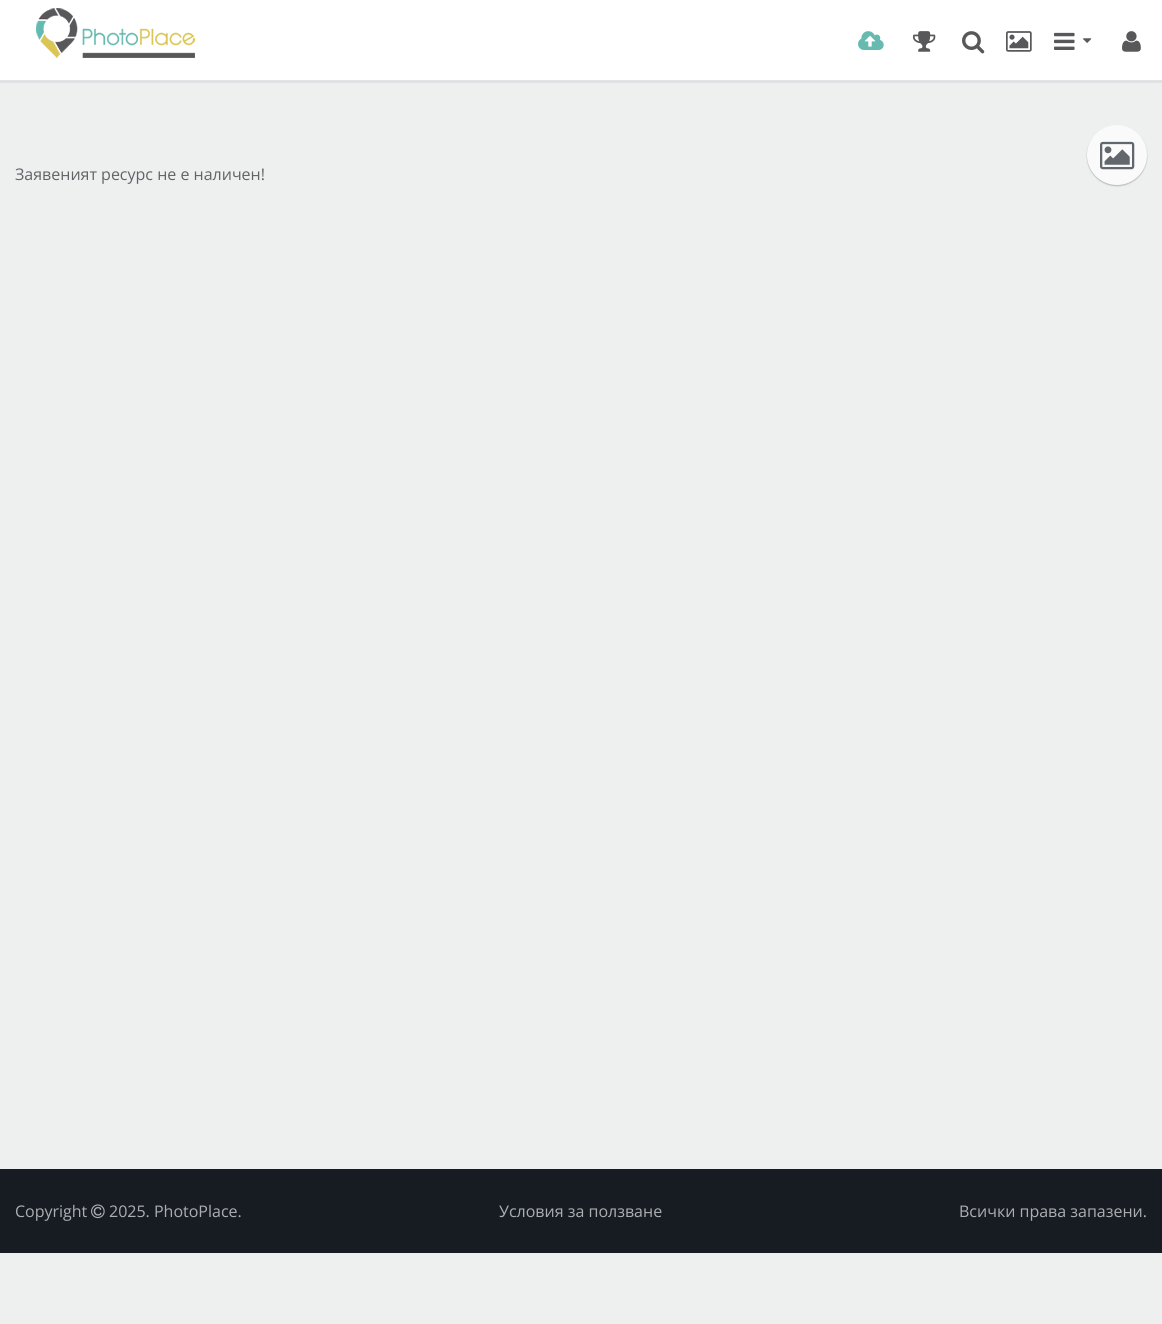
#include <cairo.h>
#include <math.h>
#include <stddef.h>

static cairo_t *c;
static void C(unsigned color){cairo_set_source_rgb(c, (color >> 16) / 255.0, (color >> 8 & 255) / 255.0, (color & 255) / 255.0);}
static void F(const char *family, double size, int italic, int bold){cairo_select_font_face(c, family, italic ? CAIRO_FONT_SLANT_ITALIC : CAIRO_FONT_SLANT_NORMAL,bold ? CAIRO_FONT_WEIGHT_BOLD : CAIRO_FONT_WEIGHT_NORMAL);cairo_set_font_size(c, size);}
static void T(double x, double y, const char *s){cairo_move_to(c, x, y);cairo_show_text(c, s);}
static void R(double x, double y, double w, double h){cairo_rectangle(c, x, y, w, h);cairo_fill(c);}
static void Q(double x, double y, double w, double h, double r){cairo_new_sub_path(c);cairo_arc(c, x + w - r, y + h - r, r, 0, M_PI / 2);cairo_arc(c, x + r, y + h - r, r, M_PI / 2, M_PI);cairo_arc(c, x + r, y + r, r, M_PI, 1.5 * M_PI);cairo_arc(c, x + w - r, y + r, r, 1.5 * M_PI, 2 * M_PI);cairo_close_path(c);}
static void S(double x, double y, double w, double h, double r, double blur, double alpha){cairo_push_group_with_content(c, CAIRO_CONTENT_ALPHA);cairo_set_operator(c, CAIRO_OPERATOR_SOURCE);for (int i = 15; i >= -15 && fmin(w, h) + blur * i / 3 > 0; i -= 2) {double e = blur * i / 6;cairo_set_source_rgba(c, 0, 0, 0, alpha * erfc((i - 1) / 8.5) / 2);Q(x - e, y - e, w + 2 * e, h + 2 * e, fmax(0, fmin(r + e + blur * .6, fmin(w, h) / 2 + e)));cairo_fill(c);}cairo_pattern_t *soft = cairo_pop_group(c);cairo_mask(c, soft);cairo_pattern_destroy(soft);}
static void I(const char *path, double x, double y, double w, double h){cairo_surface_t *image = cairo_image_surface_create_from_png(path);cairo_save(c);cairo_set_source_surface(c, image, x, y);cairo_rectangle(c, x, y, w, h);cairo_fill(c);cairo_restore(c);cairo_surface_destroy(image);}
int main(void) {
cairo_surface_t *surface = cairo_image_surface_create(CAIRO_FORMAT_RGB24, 1162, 1324);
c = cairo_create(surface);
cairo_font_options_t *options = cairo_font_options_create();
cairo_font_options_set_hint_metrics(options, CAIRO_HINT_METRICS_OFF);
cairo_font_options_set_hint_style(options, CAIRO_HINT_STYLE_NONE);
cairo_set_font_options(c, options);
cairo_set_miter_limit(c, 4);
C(0xeeefef);
cairo_paint(c);
C(0xffffff);
R(0,0,1162,80);
C(0xe1e2e3);
R(0,80,1162,3);
I("1.png",36,8,159,50);
I("2.png",858,31,26,19);
I("3.png",913,31,23,21);
I("4.png",962,31,23,23);
I("5.png",1006,31,26,21);
I("6.png",1054,32,21,18);
I("7.png",1083,38,9,5);
I("8.png",1122,31,19,21);
F("Open Sans",16,0,0);
C(0x616367);
T(15,180,"Заявеният ресурс не е наличен!");
C(0x474848);
S(1087,126,60,60,30,.5,.24);
S(1087,126,60,60,30,1,.12);
C(0xfafafa);
cairo_arc(c,1117,155,30,0,2 * M_PI);
cairo_fill(c);
I("9.png",1100,141,35,29);
C(0x171c22);
R(0,1169,1162,84);
C(0xacafb2);
T(15,1217,"Copyright");
I("10.png",91,1204,14,15);
T(109,1217,"2025. PhotoPlace.");
T(499,1217,"Условия за ползване");
T(959,1217,"Всички права запазени.");
cairo_surface_write_to_png(surface, "o.png");
cairo_font_options_destroy(options);
cairo_destroy(c);
cairo_surface_destroy(surface);
return 0;
}
